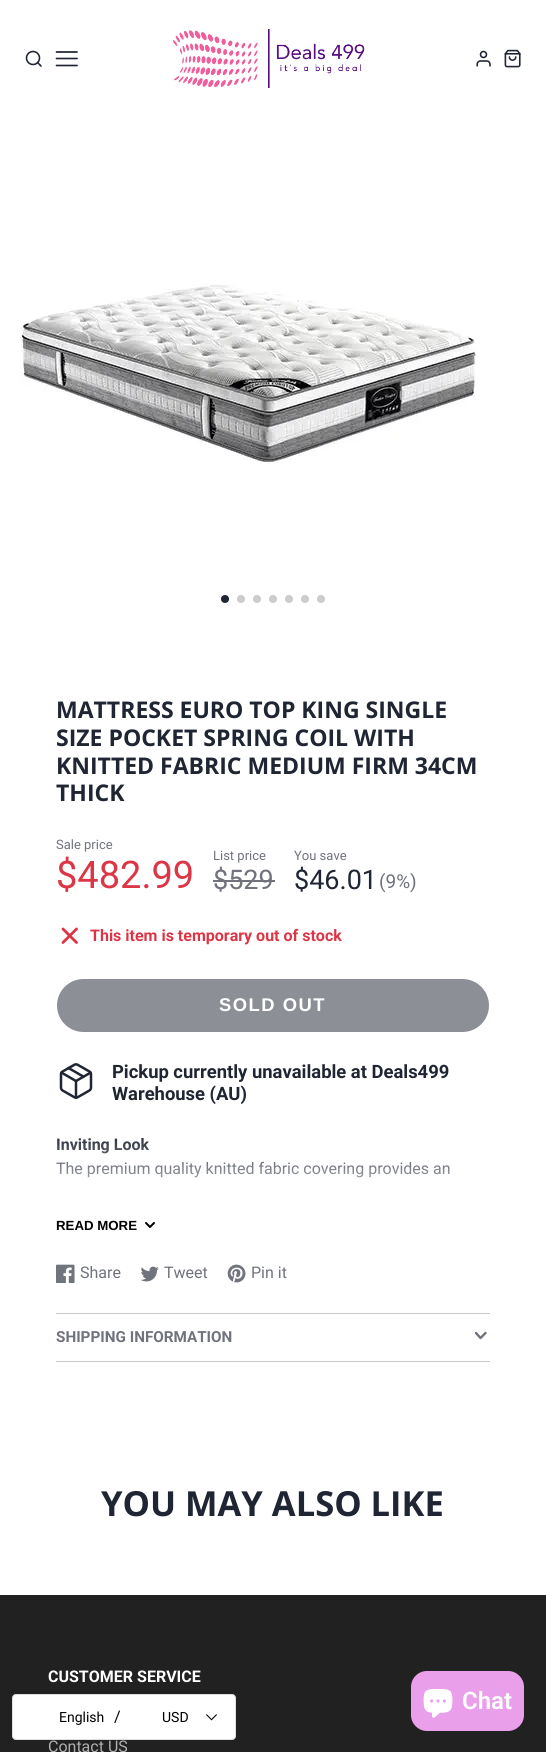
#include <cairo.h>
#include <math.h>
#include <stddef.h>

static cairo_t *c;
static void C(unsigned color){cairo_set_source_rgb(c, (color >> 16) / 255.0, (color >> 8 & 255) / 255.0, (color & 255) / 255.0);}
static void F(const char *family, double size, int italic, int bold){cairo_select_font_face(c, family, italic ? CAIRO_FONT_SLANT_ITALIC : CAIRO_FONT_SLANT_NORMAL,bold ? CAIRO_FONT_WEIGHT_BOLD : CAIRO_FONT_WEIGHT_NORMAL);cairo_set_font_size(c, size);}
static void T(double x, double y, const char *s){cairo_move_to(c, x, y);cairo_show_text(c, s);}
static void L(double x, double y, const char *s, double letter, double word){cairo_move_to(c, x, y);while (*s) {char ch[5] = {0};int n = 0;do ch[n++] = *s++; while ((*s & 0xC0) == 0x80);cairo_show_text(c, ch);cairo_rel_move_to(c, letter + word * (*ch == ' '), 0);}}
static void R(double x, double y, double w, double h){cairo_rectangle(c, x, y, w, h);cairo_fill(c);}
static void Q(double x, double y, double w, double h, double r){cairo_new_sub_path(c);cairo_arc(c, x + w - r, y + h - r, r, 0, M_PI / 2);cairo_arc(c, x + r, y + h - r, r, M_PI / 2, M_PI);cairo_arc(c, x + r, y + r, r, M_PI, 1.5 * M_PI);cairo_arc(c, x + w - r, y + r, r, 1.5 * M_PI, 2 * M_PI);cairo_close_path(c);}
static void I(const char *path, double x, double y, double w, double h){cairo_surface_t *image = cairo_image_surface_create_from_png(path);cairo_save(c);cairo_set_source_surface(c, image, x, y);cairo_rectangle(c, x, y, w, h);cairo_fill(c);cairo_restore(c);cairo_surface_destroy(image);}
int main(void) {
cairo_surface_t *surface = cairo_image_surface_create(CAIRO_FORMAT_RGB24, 546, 1752);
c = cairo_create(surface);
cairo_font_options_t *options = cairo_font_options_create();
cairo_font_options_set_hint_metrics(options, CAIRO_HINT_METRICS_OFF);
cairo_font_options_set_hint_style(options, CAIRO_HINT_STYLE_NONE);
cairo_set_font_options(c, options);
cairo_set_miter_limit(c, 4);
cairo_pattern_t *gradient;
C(0xffffff);
cairo_paint(c);
cairo_arc(c,33,58,6.5,0,2 * M_PI);
C(0x1f2532);
cairo_set_line_width(c,1.6);
cairo_stroke(c);
cairo_new_path(c);
cairo_move_to(c,41,66);
cairo_line_to(c,37.5,62.5);
cairo_set_line_cap(c,CAIRO_LINE_CAP_ROUND);
cairo_set_line_join(c,CAIRO_LINE_JOIN_ROUND);
cairo_stroke(c);
cairo_new_path(c);
cairo_move_to(c,56.5,58.5);
cairo_line_to(c,77,58.5);
cairo_move_to(c,56.5,52);
cairo_line_to(c,77,52);
cairo_move_to(c,56.5,65.5);
cairo_line_to(c,77,65.5);
cairo_set_line_width(c,1.7);
cairo_stroke(c);
I("1.png",173,28,192,60);
I("2.png",476,50,15,17);
I("3.png",504,49,17,19);
I("4.png",20,284,456,180);
cairo_arc(c,225,599,4,0,2 * M_PI);
cairo_fill(c);
C(0xcccccc);
cairo_arc(c,241,599,4,0,2 * M_PI);
cairo_fill(c);
cairo_arc(c,257,599,4,0,2 * M_PI);
cairo_fill(c);
cairo_arc(c,273,599,4,0,2 * M_PI);
cairo_fill(c);
cairo_arc(c,289,599,4,0,2 * M_PI);
cairo_fill(c);
cairo_arc(c,305,599,4,0,2 * M_PI);
cairo_fill(c);
cairo_arc(c,321,599,4,0,2 * M_PI);
cairo_fill(c);
F("Open Sans",23,0,1);
C(0x1f2532);
T(56,718,"MATTRESS EURO TOP KING SINGLE");
T(56,746,"SIZE POCKET SPRING COIL WITH");
T(56,774,"KNITTED FABRIC MEDIUM FIRM 34CM");
T(56,801,"THICK");
F("Roboto",13,0,0);
C(0x70737c);
T(56,849,"Sale price");
F("Roboto",38,0,0);
C(0xdc3545);
T(56,888,"$482.99");
F("Roboto",13,0,0);
C(0x70737c);
T(213,860,"List price");
F("Roboto",27,0,0);
T(213,889,"$529");
R(213,880,62,2);
F("Roboto",13,0,0);
T(294,860,"You save");
F("Roboto",27,0,0);
C(0x1f2532);
T(294,889,"$46.01");
F("Roboto",19,0,0);
C(0x70737c);
T(379,888,"(9%)");
cairo_new_path(c);
cairo_move_to(c,76.5,929);
cairo_line_to(c,63,942.5);
cairo_move_to(c,63,929);
cairo_line_to(c,76.5,942.5);
C(0xdc3545);
cairo_set_line_width(c,2.8);
cairo_stroke(c);
F("Roboto",16,0,1);
T(90,941,"This item is temporary out of stock");
C(0x8c8f96);
Q(57,979,432,53,26.5);
cairo_fill(c);
F("Liberation Sans",18.4,0,1);
C(0xffffff);
L(219,1011,"SOLD OUT",1.5,0);
I("5.png",59,1063,34,36);
F("Roboto",18.4,0,1);
C(0x1f2532);
T(112,1078,"Pickup currently unavailable at Deals499");
T(112,1100,"Warehouse (AU)");
F("Roboto",16,0,1);
T(56,1150,"Inviting Look");
F("Roboto",16,0,0);
T(56,1174,"The premium quality knitted fabric covering provides an");
gradient = cairo_pattern_create_linear(273,1233,273,1133);
cairo_pattern_add_color_stop_rgba(gradient,.15,1,1,1,1);
cairo_pattern_add_color_stop_rgba(gradient,1,1,1,1,0);
cairo_set_source(c,gradient);
cairo_pattern_destroy(gradient);
R(56,1138,394,40);
F("Liberation Sans",13.25,0,1);
C(0x000000);
T(56,1230,"READ MORE");
cairo_new_path(c);
cairo_move_to(c,146,1223);
cairo_line_to(c,150,1227);
cairo_line_to(c,154,1223);
cairo_set_line_width(c,2);
cairo_stroke(c);
I("6.png",56,1264,19,19);
F("Roboto",16,0,0);
C(0x70737c);
T(80,1278,"Share");
I("7.png",140,1266,19,16);
T(164,1278,"Tweet");
I("8.png",227,1264,19,19);
T(251,1278,"Pin it");
C(0xc7c9cc);
R(56,1313,434,1);
F("Roboto",15.25,0,1);
C(0x70737c);
T(56,1342,"SHIPPING INFORMATION");
cairo_new_path(c);
cairo_move_to(c,476,1333);
cairo_line_to(c,480.5,1338);
cairo_line_to(c,485.5,1333);
cairo_set_line_width(c,2.4);
cairo_stroke(c);
C(0xc7c9cc);
R(56,1361,434,1);
F("Open Sans",34.5,0,1);
C(0x1f2532);
T(101,1516,"YOU MAY ALSO LIKE");
C(0x212121);
R(0,1595,546,157);
F("Roboto",16,0,1);
C(0xffffff);
T(48,1682,"CUSTOMER SERVICE");
F("Roboto",16,0,0);
C(0xafafaf);
T(48,1752,"Contact US");
C(0xea9fea);
Q(411,1671,113,60,16);
cairo_fill(c);
I("9.png",423,1689,30,29);
F("Roboto SemiBold",24,0,0);
C(0xffffff);
T(462,1709,"Chat");
Q(12.5,1694.5,223,45,3.5);
cairo_fill_preserve(c);
C(0xe0e0e0);
cairo_set_line_width(c,1);
cairo_set_line_cap(c,CAIRO_LINE_CAP_BUTT);
cairo_set_line_join(c,CAIRO_LINE_JOIN_MITER);
cairo_stroke(c);
F("Roboto",14,0,0);
C(0x000000);
T(59,1722,"English");
F("Roboto",16,0,0);
T(114,1722,"/");
F("Roboto",14,0,0);
T(162,1722,"USD");
I("10.png",206,1714,11,7);
cairo_surface_write_to_png(surface, "o.png");
cairo_font_options_destroy(options);
cairo_destroy(c);
cairo_surface_destroy(surface);
return 0;
}
